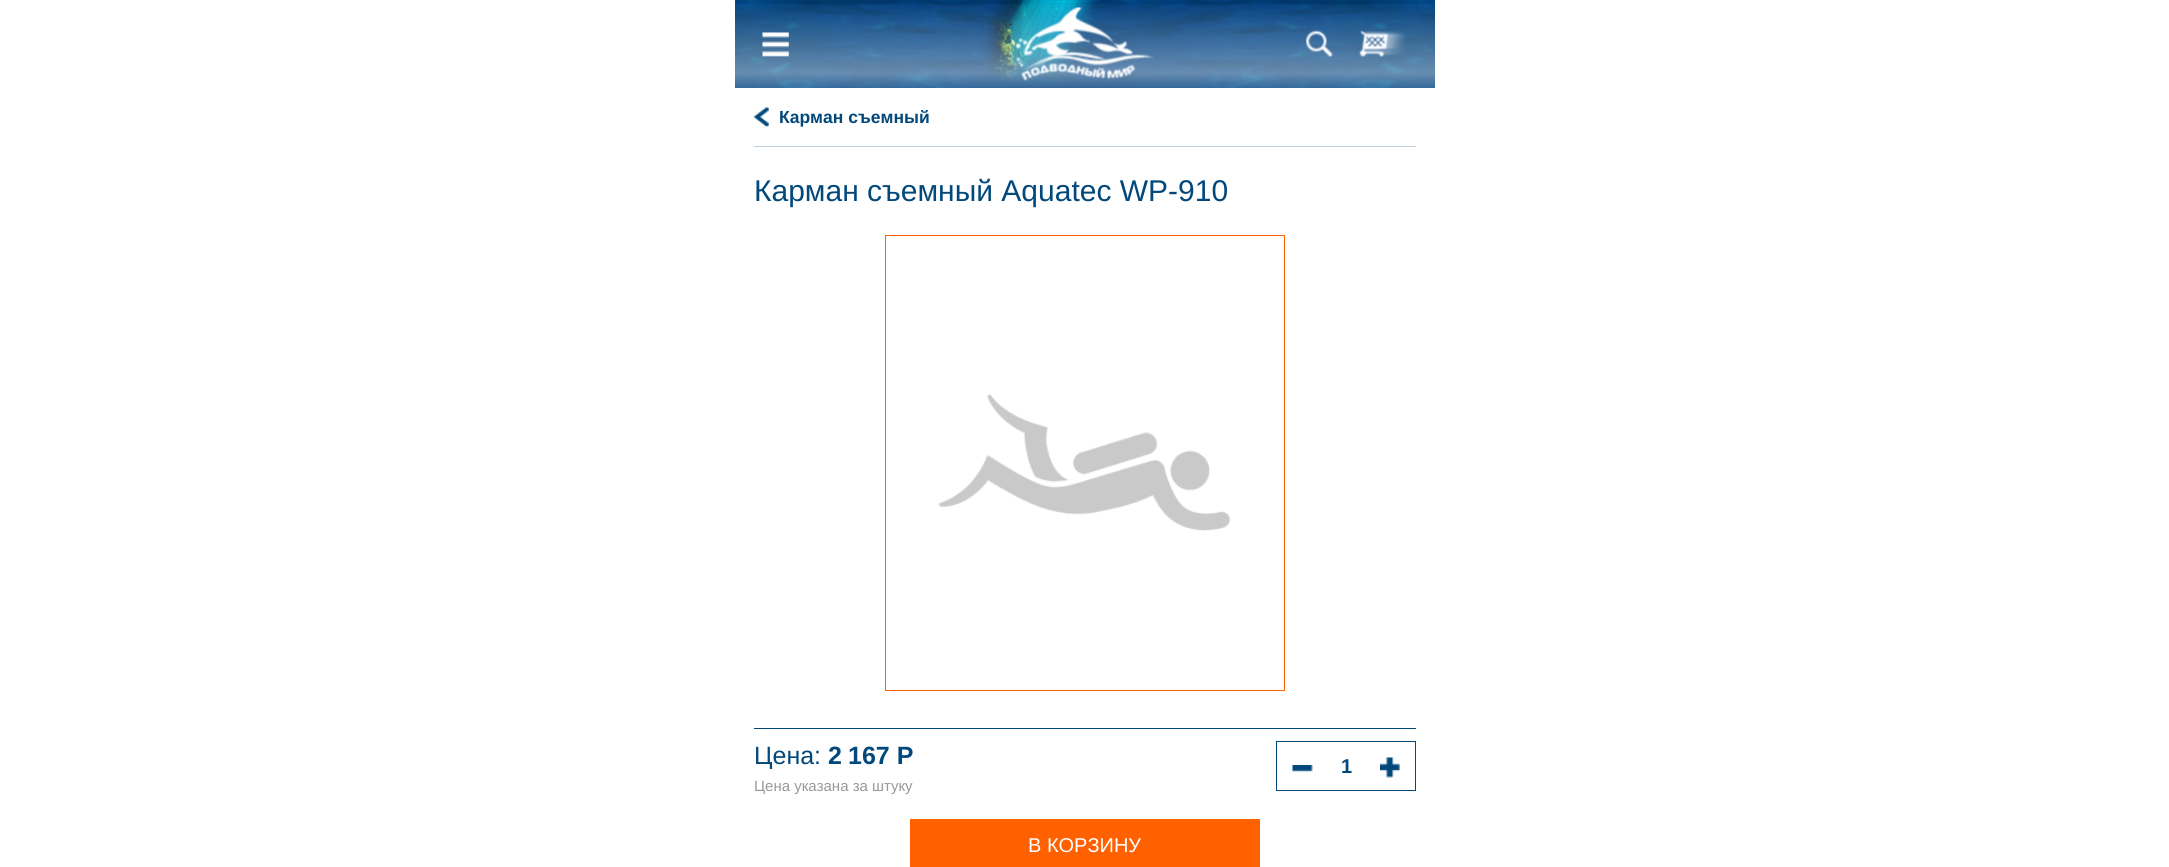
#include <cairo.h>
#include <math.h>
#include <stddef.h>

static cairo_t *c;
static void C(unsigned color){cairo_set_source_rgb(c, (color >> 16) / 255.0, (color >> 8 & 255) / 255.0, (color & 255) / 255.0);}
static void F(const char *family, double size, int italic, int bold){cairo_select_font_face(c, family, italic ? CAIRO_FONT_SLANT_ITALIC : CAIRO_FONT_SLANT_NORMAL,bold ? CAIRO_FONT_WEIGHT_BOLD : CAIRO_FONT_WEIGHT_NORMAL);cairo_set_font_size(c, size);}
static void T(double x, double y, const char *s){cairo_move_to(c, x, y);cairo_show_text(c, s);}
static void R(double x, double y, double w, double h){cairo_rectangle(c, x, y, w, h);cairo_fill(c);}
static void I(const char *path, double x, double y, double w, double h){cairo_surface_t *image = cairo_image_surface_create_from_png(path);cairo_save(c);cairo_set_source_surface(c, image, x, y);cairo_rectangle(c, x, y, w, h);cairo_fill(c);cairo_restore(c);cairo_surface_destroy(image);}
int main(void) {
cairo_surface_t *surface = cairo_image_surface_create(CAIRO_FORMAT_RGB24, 2169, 867);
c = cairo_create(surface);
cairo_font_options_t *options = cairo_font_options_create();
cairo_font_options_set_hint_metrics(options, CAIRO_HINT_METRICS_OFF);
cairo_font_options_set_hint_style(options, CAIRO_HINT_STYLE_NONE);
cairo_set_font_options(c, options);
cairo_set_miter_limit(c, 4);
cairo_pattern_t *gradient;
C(0xffffff);
cairo_paint(c);
I("1.png",735,0,700,88);
I("2.png",980,0,174,83);
gradient = cairo_pattern_create_linear(1085,0,1085,88);
cairo_pattern_add_color_stop_rgba(gradient,0,1,1,1,0);
cairo_pattern_add_color_stop_rgba(gradient,.83,1,1,1,.4);
cairo_pattern_add_color_stop_rgba(gradient,1,1,1,1,.2);
cairo_set_source(c,gradient);
cairo_pattern_destroy(gradient);
R(735,4,700,84);
I("3.png",762,32,27,25);
I("4.png",1016,7,138,74);
I("5.png",1306,30,28,27);
I("6.png",1359,30,47,27);
I("7.png",753,107,16,20);
C(0xc0d1de);
R(754,146,662,1);
F("Liberation Sans",17.5,0,1);
C(0x02487b);
T(779,123,"Карман съемный");
F("Liberation Sans",30,0,0);
T(754,201,"Карман съемный Aquatec WP-910");
R(754,728,662,1);
cairo_rectangle(c,885.5,235.5,399,455);
C(0xff6000);
cairo_set_line_width(c,1);
cairo_stroke(c);
I("8.png",938,394,293,137);
F("Liberation Sans",25,0,0);
C(0x02487b);
T(754,764,"Цена:");
F("Liberation Sans",25,0,1);
T(828,764,"2");
T(848,764,"167 Р");
F("Liberation Sans",15,0,0);
C(0x999999);
T(754,791,"Цена указана за штуку");
cairo_rectangle(c,1276.5,741.5,139,49);
C(0x02487b);
cairo_stroke(c);
I("9.png",1292,765,21,7);
F("Liberation Sans",20,0,1);
T(1341,773,"1");
I("10.png",1380,757,20,21);
C(0xff6000);
R(910,819,350,48);
F("Liberation Sans",20,0,0);
C(0xffffff);
T(1028,852,"В КОРЗИНУ");
cairo_surface_write_to_png(surface, "o.png");
cairo_font_options_destroy(options);
cairo_destroy(c);
cairo_surface_destroy(surface);
return 0;
}
